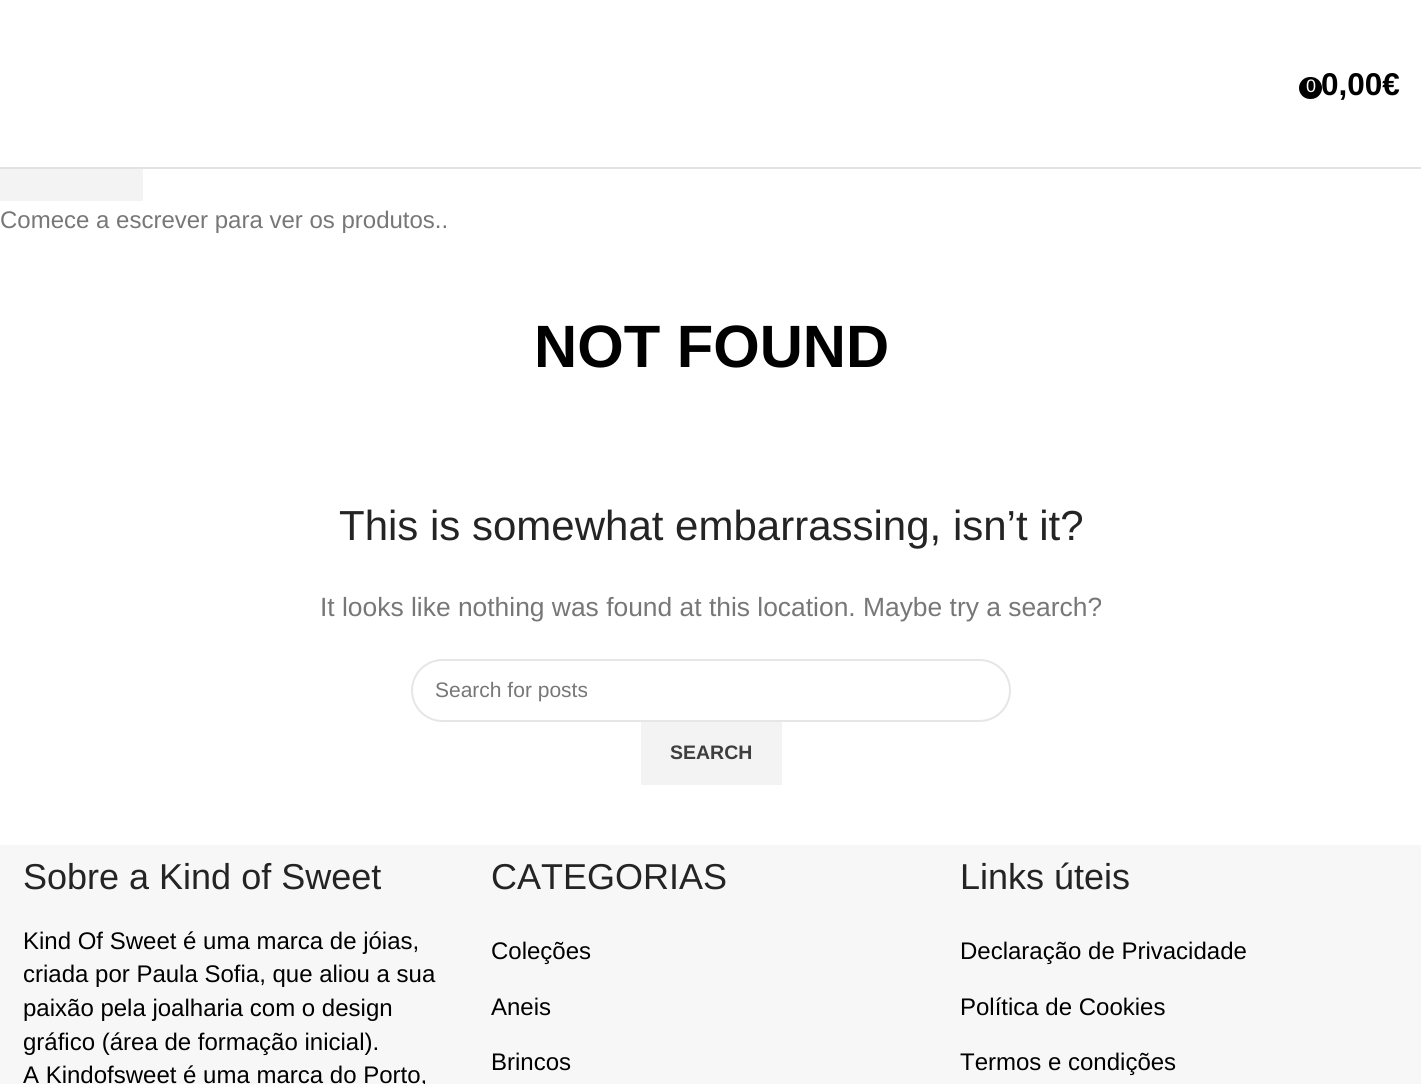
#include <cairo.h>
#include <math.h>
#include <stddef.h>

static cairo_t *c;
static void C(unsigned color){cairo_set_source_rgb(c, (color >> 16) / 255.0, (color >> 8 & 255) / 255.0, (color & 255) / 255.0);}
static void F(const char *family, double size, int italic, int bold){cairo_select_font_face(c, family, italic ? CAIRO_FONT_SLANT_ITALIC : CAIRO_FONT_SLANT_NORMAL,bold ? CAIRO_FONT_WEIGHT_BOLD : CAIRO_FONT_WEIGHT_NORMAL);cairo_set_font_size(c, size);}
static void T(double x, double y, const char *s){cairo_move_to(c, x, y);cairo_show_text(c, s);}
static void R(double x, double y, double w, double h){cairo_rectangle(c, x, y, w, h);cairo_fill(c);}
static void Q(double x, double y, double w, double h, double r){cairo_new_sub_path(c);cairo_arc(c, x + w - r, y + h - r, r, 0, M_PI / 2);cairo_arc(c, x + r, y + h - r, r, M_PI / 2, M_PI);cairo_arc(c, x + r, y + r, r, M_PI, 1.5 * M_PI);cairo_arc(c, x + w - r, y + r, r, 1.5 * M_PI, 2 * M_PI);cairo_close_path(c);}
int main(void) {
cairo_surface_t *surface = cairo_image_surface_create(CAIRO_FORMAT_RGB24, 1421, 1084);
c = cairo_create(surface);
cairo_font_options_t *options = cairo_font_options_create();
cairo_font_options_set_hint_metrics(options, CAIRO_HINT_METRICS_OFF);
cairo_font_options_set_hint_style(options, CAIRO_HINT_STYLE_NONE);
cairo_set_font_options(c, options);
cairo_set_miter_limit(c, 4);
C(0xffffff);
cairo_paint(c);
C(0xe2e2e2);
R(0,167,1421,2);
C(0x000000);
Q(1299,77,23,22,11);
cairo_fill(c);
F("Liberation Sans",18,0,0);
C(0xffffff);
T(1306,92,"0");
F("Liberation Sans",31.5,0,1);
C(0x000000);
T(1321,95,"0,00€");
F("Liberation Sans",59.75,0,1);
T(534,367,"NOT FOUND");
F("Liberation Sans",42,0,0);
C(0x242424);
T(339,540,"This is somewhat embarrassing, isn’t it?");
F("Liberation Sans",26.4,0,0);
C(0x777777);
T(320,616,"It looks like nothing was found at this location. Maybe try a search?");
Q(412,660,598,61,30.5);
C(0xe6e6e6);
cairo_stroke(c);
F("Liberation Sans",21,0,0);
C(0x777777);
T(435,697,"Search for posts");
C(0xf3f3f3);
R(641,722,141,63);
F("Liberation Sans",19.5,0,1);
C(0x3e3e3e);
T(670,759,"SEARCH");
C(0xf7f7f7);
R(0,845,1421,239);
F("Liberation Sans",36,0,0);
C(0x242424);
T(23,889,"Sobre a Kind of Sweet");
F("Liberation Sans",24,0,0);
C(0x000000);
T(23,949,"Kind Of Sweet é uma marca de jóias,");
T(23,982,"criada por Paula Sofia, que aliou a sua");
T(23,1016,"paixão pela joalharia com o design");
T(23,1050,"gráfico (área de formação inicial).");
T(23,1083,"A Kindofsweet é uma marca do Porto,");
F("Liberation Sans",36,0,0);
C(0x242424);
T(491,889,"CATEGORIAS");
F("Liberation Sans",24,0,0);
C(0x000000);
T(491,959,"Coleções");
T(491,1015,"Aneis");
T(491,1070,"Brincos");
F("Liberation Sans",36,0,0);
C(0x242424);
T(960,889,"Links úteis");
F("Liberation Sans",24,0,0);
C(0x000000);
T(960,959,"Declaração de Privacidade");
T(960,1015,"Política de Cookies");
T(960,1070,"Termos e condições");
C(0xf3f3f3);
R(0,169,143,32);
C(0x777777);
T(0,228,"Comece a escrever para ver os produtos..");
cairo_surface_write_to_png(surface, "o.png");
cairo_font_options_destroy(options);
cairo_destroy(c);
cairo_surface_destroy(surface);
return 0;
}
